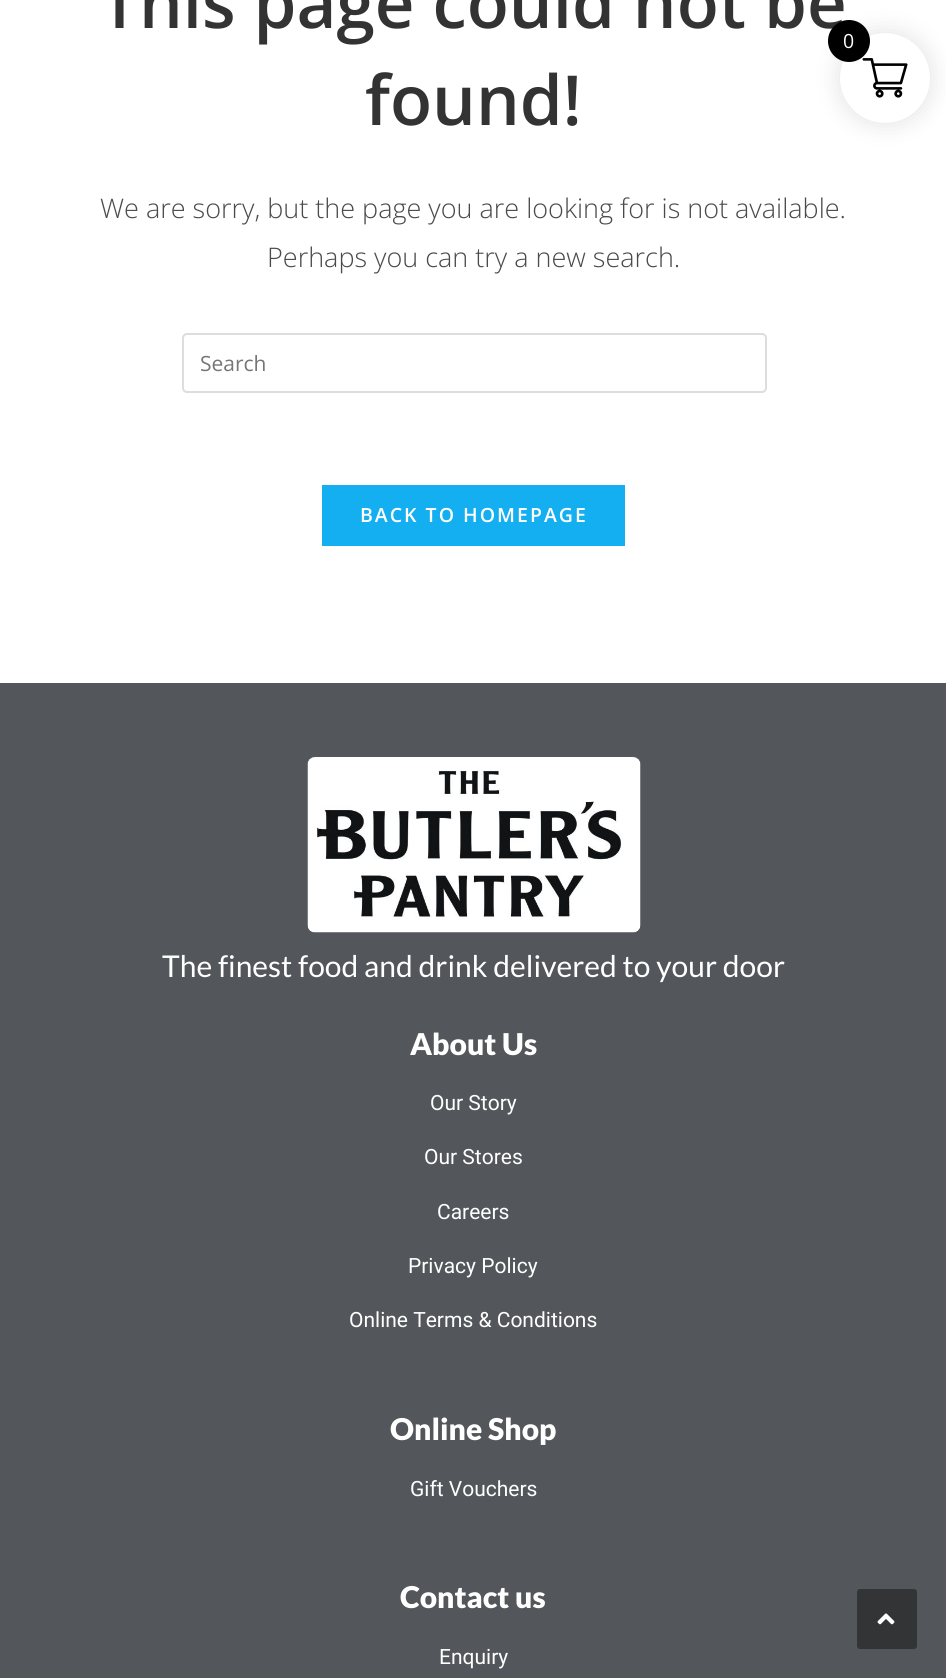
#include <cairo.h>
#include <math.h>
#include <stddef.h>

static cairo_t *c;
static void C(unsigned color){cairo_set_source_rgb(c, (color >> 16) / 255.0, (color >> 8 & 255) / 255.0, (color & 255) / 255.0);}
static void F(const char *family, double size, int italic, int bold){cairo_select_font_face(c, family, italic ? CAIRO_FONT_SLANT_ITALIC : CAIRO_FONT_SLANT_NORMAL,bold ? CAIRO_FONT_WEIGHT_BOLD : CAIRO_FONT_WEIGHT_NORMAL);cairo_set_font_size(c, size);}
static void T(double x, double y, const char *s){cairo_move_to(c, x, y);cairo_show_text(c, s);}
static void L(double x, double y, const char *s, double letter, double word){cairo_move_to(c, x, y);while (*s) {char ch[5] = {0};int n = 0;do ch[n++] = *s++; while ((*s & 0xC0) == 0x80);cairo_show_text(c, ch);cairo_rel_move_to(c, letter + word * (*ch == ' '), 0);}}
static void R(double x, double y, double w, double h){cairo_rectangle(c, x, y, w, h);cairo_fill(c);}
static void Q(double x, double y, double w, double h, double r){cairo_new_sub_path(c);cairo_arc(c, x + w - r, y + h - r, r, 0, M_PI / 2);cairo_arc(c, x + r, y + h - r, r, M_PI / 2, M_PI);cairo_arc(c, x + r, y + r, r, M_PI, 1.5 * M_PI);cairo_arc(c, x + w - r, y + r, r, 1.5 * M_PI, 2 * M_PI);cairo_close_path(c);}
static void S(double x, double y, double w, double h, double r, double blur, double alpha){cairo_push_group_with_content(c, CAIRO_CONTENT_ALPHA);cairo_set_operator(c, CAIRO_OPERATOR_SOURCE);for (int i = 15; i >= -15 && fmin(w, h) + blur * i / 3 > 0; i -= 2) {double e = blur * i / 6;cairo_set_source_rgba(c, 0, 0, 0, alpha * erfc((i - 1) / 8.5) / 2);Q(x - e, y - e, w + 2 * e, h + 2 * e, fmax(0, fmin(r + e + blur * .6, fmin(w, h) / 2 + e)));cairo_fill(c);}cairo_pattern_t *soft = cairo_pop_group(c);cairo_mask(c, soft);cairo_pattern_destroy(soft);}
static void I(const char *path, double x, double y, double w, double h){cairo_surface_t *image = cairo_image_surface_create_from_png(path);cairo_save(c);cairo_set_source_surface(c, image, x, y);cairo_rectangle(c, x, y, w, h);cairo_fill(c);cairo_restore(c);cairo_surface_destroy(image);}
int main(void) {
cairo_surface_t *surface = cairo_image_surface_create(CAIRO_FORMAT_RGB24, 946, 1678);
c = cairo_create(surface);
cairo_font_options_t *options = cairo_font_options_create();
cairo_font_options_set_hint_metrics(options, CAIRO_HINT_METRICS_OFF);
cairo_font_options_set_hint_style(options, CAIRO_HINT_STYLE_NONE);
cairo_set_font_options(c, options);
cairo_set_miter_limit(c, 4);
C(0xffffff);
cairo_paint(c);
F("Open Sans SemiBold",69,0,0);
C(0x333333);
T(100,28,"This page could not be");
T(365,125,"found!");
F("Open Sans Light",27,0,0);
C(0x4a4a4a);
T(100,218,"We are sorry, but the page you are looking for is not available.");
T(267,267,"Perhaps you can try a new search.");
Q(183,334,583,58,4);
C(0xdddddd);
cairo_stroke(c);
F("Open Sans",21,0,0);
C(0x757575);
T(200,371,"Search");
C(0x13aff0);
R(322,485,303,61);
F("Open Sans SemiBold",19.5,0,0);
C(0xffffff);
L(360,522,"BACK TO HOMEPAGE",2,0);
C(0x53565a);
R(0,683,946,995);
I("1.png",307,757,334,176);
F("Lato",30,0,0);
C(0xffffff);
T(162,977,"The finest food and drink delivered to your door");
F("Lato Black",30,0,0);
T(410,1055,"About Us");
F("Roboto",21,0,0);
T(430,1110,"Our Story");
T(424,1164,"Our Stores");
T(437,1219,"Careers");
T(408,1273,"Privacy Policy");
T(349,1327,"Online Terms & Conditions");
F("Lato Black",30,0,0);
T(390,1440,"Online Shop");
F("Roboto",21,0,0);
T(410,1496,"Gift Vouchers");
F("Lato Black",30,0,0);
T(400,1608,"Contact us");
F("Roboto",21,0,0);
T(439,1664,"Enquiry");
C(0x000000);
S(837,30,96,96,48,11,.1);
C(0xffffff);
cairo_arc(c,885,78,45,0,2 * M_PI);
cairo_fill(c);
I("2.png",862,58,46,40);
C(0x000000);
cairo_arc(c,849,41,21,0,2 * M_PI);
cairo_fill(c);
F("Open Sans",19.5,0,0);
C(0xffffff);
T(843,48,"0");
C(0x323436);
Q(857,1589,60,60,3);
cairo_fill(c);
I("3.png",877,1613,18,12);
cairo_surface_write_to_png(surface, "o.png");
cairo_font_options_destroy(options);
cairo_destroy(c);
cairo_surface_destroy(surface);
return 0;
}
